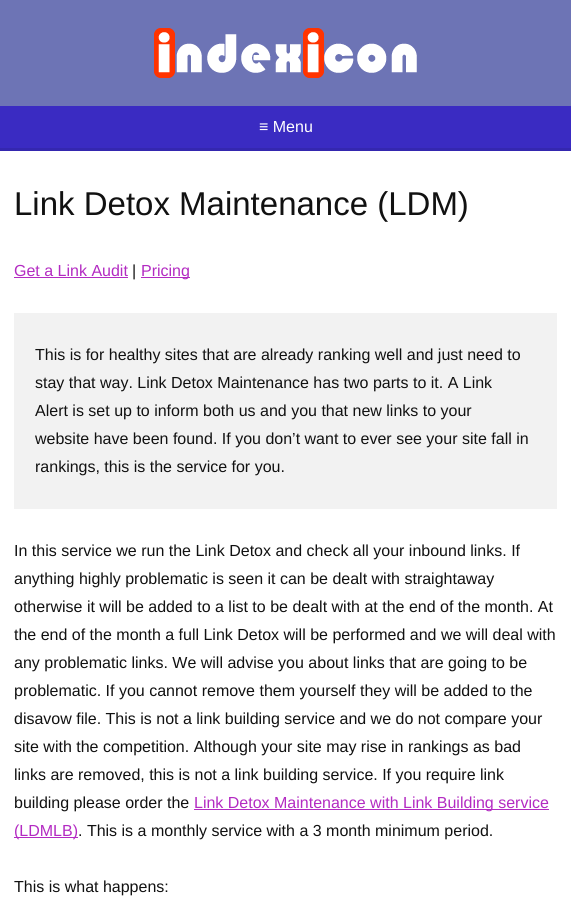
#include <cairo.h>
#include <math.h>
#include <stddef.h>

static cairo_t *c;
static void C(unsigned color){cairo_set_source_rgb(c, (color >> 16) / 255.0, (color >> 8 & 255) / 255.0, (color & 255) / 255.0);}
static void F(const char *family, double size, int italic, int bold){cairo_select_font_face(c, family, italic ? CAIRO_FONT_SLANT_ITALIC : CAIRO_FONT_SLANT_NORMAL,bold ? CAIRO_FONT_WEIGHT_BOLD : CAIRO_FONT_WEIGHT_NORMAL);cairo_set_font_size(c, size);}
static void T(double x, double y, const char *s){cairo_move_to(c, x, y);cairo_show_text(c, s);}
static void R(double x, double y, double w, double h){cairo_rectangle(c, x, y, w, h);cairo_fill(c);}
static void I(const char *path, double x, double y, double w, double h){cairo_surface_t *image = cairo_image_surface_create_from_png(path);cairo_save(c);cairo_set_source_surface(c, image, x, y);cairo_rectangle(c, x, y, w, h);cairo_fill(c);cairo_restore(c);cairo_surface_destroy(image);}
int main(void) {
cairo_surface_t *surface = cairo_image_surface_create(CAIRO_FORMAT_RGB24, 571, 900);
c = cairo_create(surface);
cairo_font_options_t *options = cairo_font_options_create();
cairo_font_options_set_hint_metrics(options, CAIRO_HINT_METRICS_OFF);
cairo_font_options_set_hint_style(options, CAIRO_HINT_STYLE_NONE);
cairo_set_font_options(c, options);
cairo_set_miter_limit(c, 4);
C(0x6d74b5);
cairo_paint(c);
I("1.png",154,28,263,50);
C(0x3a2bc2);
R(0,106,571,42);
C(0x3427af);
R(0,148,571,3);
F("Liberation Sans",16,0,0);
C(0xffffff);
T(259,132,"≡ Menu");
R(0,151,571,749);
F("Liberation Sans",33,0,0);
C(0x111111);
T(14,215,"Link Detox Maintenance (LDM)");
F("Liberation Sans",16,0,0);
C(0xb32bc2);
T(14,276,"Get a Link Audit");
R(14,277,114,1);
C(0x111111);
T(132,276,"|");
C(0xb32bc2);
R(141,277,49,1);
T(141,276,"Pricing");
C(0xf2f2f2);
R(14,313,543,196);
C(0x111111);
T(35,360,"This is for healthy sites that are already ranking well and just need to");
T(35,388,"stay that way. Link Detox Maintenance has two parts to it. A Link");
T(35,416,"Alert is set up to inform both us and you that new links to your");
T(35,444,"website have been found. If you don’t want to ever see your site fall in");
T(35,472,"rankings, this is the service for you.");
T(14,556,"In this service we run the Link Detox and check all your inbound links. If");
T(14,584,"anything highly problematic is seen it can be dealt with straightaway");
T(14,612,"otherwise it will be added to a list to be dealt with at the end of the month. At");
T(14,640,"the end of the month a full Link Detox will be performed and we will deal with");
T(14,668,"any problematic links. We will advise you about links that are going to be");
T(14,696,"problematic. If you cannot remove them yourself they will be added to the");
T(14,724,"disavow file. This is not a link building service and we do not compare your");
T(14,752,"site with the competition. Although your site may rise in rankings as bad");
T(14,780,"links are removed, this is not a link building service. If you require link");
T(14,808,"building please order the");
C(0xb32bc2);
R(194,809,355,1);
T(194,808,"Link Detox Maintenance with Link Building service");
R(14,837,64,1);
T(14,836,"(LDMLB)");
C(0x111111);
T(78,836,". This is a monthly service with a 3 month minimum period.");
T(14,892,"This is what happens:");
cairo_surface_write_to_png(surface, "o.png");
cairo_font_options_destroy(options);
cairo_destroy(c);
cairo_surface_destroy(surface);
return 0;
}
